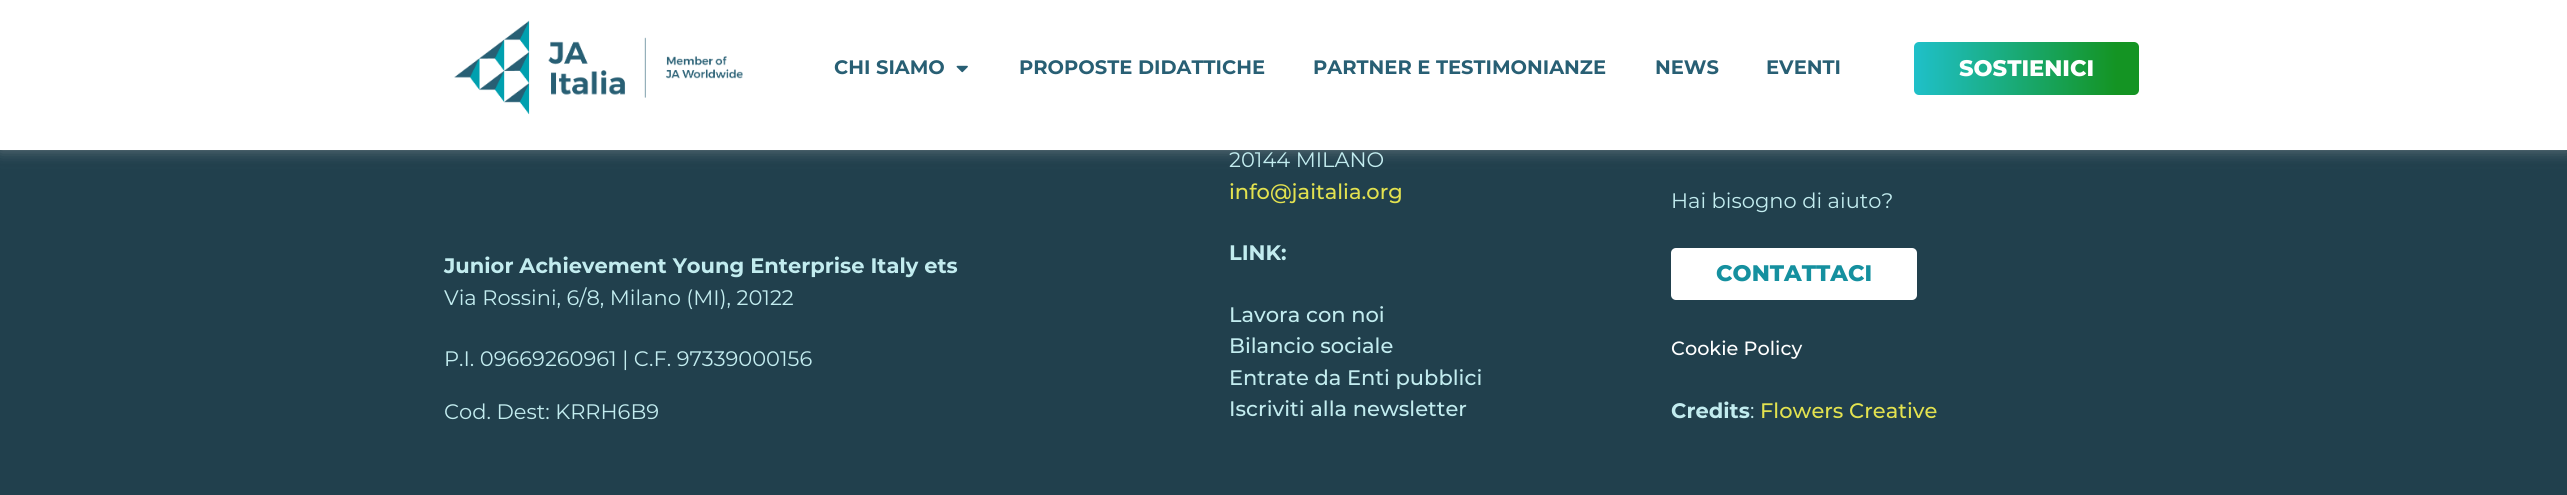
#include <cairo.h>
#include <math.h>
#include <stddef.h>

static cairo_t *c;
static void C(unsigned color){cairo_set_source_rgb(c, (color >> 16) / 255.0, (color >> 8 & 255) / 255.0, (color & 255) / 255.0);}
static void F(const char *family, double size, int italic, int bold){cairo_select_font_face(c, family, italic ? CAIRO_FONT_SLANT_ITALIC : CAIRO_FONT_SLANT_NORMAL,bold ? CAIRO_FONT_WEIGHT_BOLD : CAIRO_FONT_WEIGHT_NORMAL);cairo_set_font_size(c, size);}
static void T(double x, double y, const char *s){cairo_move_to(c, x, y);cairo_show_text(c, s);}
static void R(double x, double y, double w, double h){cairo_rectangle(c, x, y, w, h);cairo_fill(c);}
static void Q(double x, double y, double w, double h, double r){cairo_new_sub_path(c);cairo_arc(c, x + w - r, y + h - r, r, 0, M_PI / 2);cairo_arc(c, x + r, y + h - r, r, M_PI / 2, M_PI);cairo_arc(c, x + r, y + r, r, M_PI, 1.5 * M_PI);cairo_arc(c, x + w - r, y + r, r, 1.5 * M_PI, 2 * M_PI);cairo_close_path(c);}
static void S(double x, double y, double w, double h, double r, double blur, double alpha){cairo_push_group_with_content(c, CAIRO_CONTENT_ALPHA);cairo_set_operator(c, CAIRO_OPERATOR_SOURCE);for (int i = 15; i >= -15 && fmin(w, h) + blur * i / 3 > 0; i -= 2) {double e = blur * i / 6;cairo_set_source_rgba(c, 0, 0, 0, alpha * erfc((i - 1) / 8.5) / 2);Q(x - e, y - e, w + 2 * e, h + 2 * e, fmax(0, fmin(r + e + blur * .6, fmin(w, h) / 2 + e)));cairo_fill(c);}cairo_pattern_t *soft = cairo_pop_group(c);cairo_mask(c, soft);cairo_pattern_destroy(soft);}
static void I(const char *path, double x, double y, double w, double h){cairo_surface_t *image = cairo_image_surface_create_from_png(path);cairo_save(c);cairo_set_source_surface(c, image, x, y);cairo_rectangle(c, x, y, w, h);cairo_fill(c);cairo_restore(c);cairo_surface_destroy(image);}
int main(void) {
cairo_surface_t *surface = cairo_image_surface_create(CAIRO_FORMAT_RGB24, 2567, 495);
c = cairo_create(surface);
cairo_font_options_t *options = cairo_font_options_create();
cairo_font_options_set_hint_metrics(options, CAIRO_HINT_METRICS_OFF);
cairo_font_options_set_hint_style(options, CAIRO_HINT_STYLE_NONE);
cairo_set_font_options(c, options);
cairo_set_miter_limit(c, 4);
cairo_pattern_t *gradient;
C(0x21404d);
cairo_paint(c);
C(0xaeaeae);
S(0,0,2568,150,0,7.5,.5);
C(0xffffff);
R(0,0,2567,150);
I("1.png",454,20,289,95);
F("Montserrat",19.5,0,1);
C(0x285f74);
T(834,74,"CHI SIAMO");
I("2.png",956,65,12,8);
T(1019,74,"PROPOSTE DIDATTICHE");
T(1313,74,"PARTNER E TESTIMONIANZE");
T(1655,74,"NEWS");
T(1766,74,"EVENTI");
gradient = cairo_pattern_create_linear(1914,68,2139,68);
cairo_pattern_add_color_stop_rgba(gradient,0,0.122,0.753,0.788,1);
cairo_pattern_add_color_stop_rgba(gradient,.9,0.078,0.58,0.137,1);
cairo_set_source(c,gradient);
cairo_pattern_destroy(gradient);
Q(1914,42,225,53,5);
cairo_fill(c);
F("Montserrat ExtraBold",22.5,0,0);
C(0xffffff);
T(1959,76,"SOSTIENICI");
F("Montserrat",21,0,1);
C(0xc2ecef);
T(444,273,"Junior Achievement Young Enterprise Italy ets");
F("Montserrat",21,0,0);
T(444,305,"Via Rossini, 6/8, Milano (MI), 20122");
T(444,366,"P.I. 09669260961 | C.F. 97339000156");
T(444,419,"Cod. Dest: KRRH6B9");
T(1229,167,"20144 MILANO");
F("Montserrat Medium",21,0,0);
C(0xe3e24f);
T(1229,199,"info@jaitalia.org");
F("Montserrat",21,0,1);
C(0xc2ecef);
T(1229,260,"LINK:");
F("Montserrat Medium",21,0,0);
T(1229,322,"Lavora con noi");
T(1229,353,"Bilancio sociale");
T(1229,385,"Entrate da Enti pubblici");
T(1229,416,"Iscriviti alla newsletter");
F("Montserrat",21,0,0);
T(1671,208,"Hai bisogno di aiuto?");
C(0xffffff);
Q(1671,248,246,52,5);
cairo_fill(c);
F("Montserrat ExtraBold",22.5,0,0);
C(0x15909f);
T(1716,281,"CONTATTACI");
F("Montserrat Medium",19.25,0,0);
C(0xffffff);
T(1671,355,"Cookie Policy");
F("Montserrat",21,0,1);
C(0xc2ecef);
T(1671,418,"Credits");
F("Montserrat",21,0,0);
T(1750,418,":");
F("Montserrat Medium",21,0,0);
C(0xe3e24f);
T(1760,418,"Flowers Creative");
cairo_surface_write_to_png(surface, "o.png");
cairo_font_options_destroy(options);
cairo_destroy(c);
cairo_surface_destroy(surface);
return 0;
}
